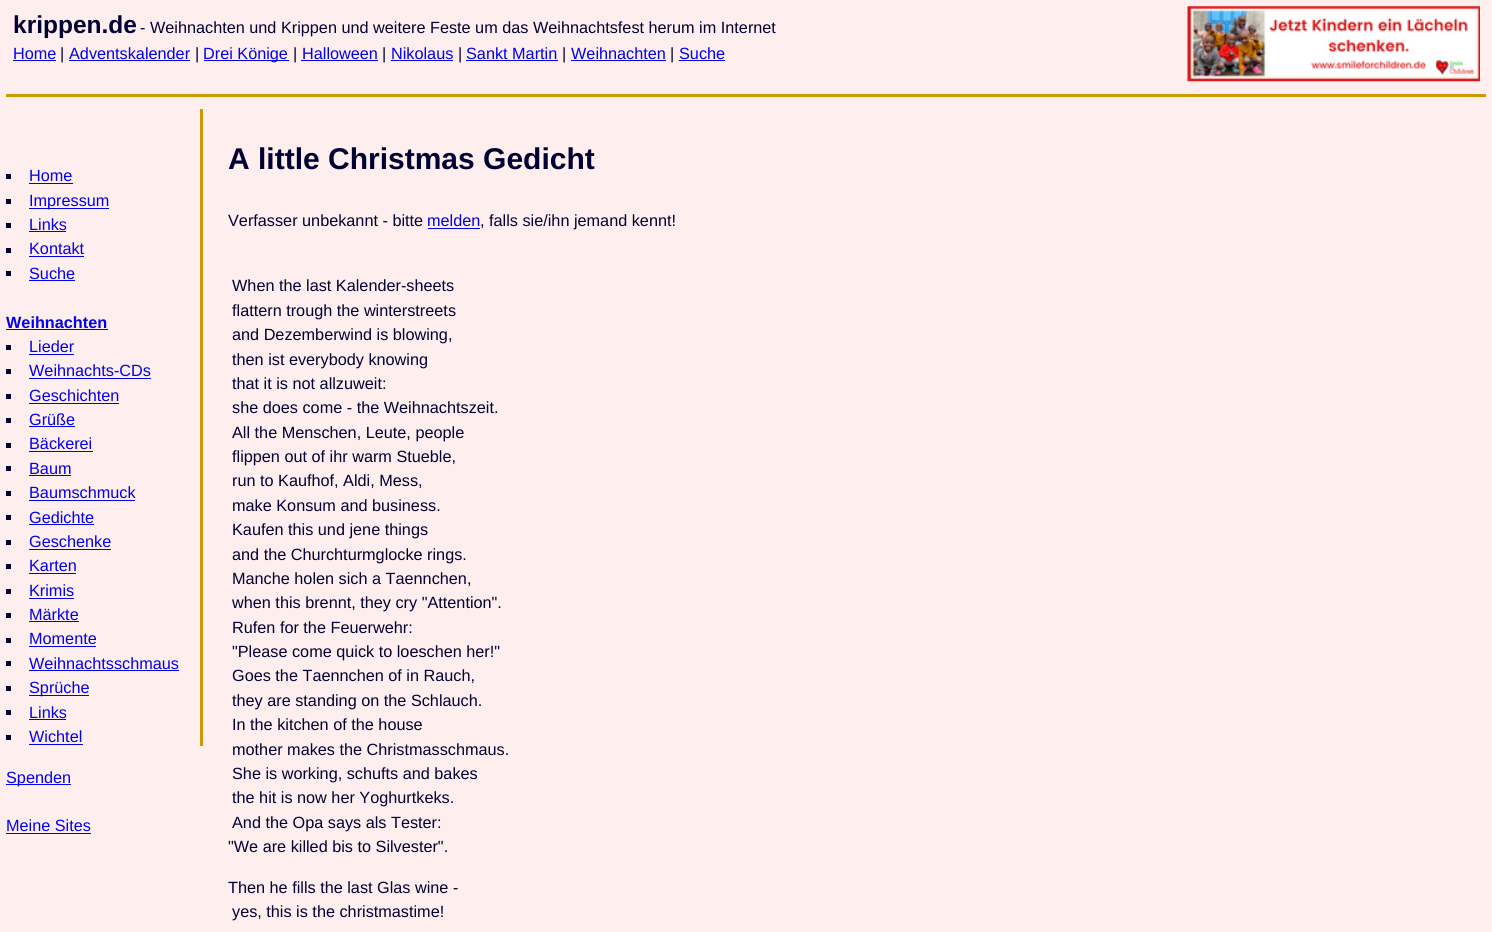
#include <cairo.h>
#include <math.h>
#include <stddef.h>

static cairo_t *c;
static void C(unsigned color){cairo_set_source_rgb(c, (color >> 16) / 255.0, (color >> 8 & 255) / 255.0, (color & 255) / 255.0);}
static void F(const char *family, double size, int italic, int bold){cairo_select_font_face(c, family, italic ? CAIRO_FONT_SLANT_ITALIC : CAIRO_FONT_SLANT_NORMAL,bold ? CAIRO_FONT_WEIGHT_BOLD : CAIRO_FONT_WEIGHT_NORMAL);cairo_set_font_size(c, size);}
static void T(double x, double y, const char *s){cairo_move_to(c, x, y);cairo_show_text(c, s);}
static void R(double x, double y, double w, double h){cairo_rectangle(c, x, y, w, h);cairo_fill(c);}
static void I(const char *path, double x, double y, double w, double h){cairo_surface_t *image = cairo_image_surface_create_from_png(path);cairo_save(c);cairo_set_source_surface(c, image, x, y);cairo_rectangle(c, x, y, w, h);cairo_fill(c);cairo_restore(c);cairo_surface_destroy(image);}
int main(void) {
cairo_surface_t *surface = cairo_image_surface_create(CAIRO_FORMAT_RGB24, 1492, 932);
c = cairo_create(surface);
cairo_font_options_t *options = cairo_font_options_create();
cairo_font_options_set_hint_metrics(options, CAIRO_HINT_METRICS_OFF);
cairo_font_options_set_hint_style(options, CAIRO_HINT_STYLE_NONE);
cairo_set_font_options(c, options);
cairo_set_miter_limit(c, 4);
C(0xffeeee);
cairo_paint(c);
C(0xcc9900);
R(6,94,1480,3);
F("Liberation Sans",24.5,0,1);
C(0x000033);
T(13,33,"krippen.de");
F("Liberation Sans",16.25,0,0);
T(140,33,"- Weihnachten und Krippen und weitere Feste um das Weihnachtsfest herum im Internet");
I("1.png",1187,6,293,76);
C(0x0000ee);
T(13,59,"Home");
R(13,60,43,1);
C(0x000033);
T(60,59,"|");
C(0x0000ee);
T(69,59,"Adventskalender");
R(69,60,121,1);
C(0x000033);
T(195,59,"|");
C(0x0000ee);
R(204,60,85,1);
T(203,59,"Drei Könige");
C(0x000033);
T(293,59,"|");
C(0x0000ee);
T(302,59,"Halloween");
R(301,60,77,1);
C(0x000033);
T(382,59,"|");
C(0x0000ee);
T(391,59,"Nikolaus");
R(391,60,62,1);
C(0x000033);
T(458,59,"|");
C(0x0000ee);
T(466,59,"Sankt Martin");
R(466,60,92,1);
C(0x000033);
T(562,59,"|");
C(0x0000ee);
T(571,59,"Weihnachten");
R(571,60,95,1);
C(0x000033);
T(670,59,"|");
C(0x0000ee);
T(679,59,"Suche");
R(679,60,46,1);
C(0xcc9900);
R(200,109,3,637);
C(0x000033);
R(6,174,5,5);
C(0x0000ee);
T(29,181,"Home");
R(29,183,44,1);
C(0x000033);
R(6,199,5,5);
C(0x0000ee);
R(29,208,80,1);
T(29,206,"Impressum");
C(0x000033);
R(6,223,5,5);
C(0x0000ee);
T(29,230,"Links");
R(29,231,37,1);
C(0x000033);
R(6,248,5,5);
C(0x0000ee);
T(29,254,"Kontakt");
R(29,256,55,1);
C(0x000033);
R(6,271,5,5);
C(0x0000ee);
T(29,279,"Suche");
R(29,280,46,1);
F("Liberation Sans",16.25,0,1);
T(6,328,"Weihnachten");
R(6,329,102,1);
C(0x000033);
R(6,345,5,5);
F("Liberation Sans",16.25,0,0);
C(0x0000ee);
T(29,352,"Lieder");
R(29,354,45,1);
C(0x000033);
R(6,369,5,5);
C(0x0000ee);
T(29,376,"Weihnachts-CDs");
R(29,378,122,1);
C(0x000033);
R(6,394,5,5);
C(0x0000ee);
T(29,401,"Geschichten");
R(29,403,90,1);
C(0x000033);
R(6,418,5,5);
C(0x0000ee);
T(29,425,"Grüße");
R(29,426,46,1);
C(0x000033);
R(6,443,5,5);
C(0x0000ee);
T(29,449,"Bäckerei");
R(29,451,64,1);
C(0x000033);
R(6,466,5,5);
C(0x0000ee);
T(29,474,"Baum");
R(29,475,42,1);
C(0x000033);
R(6,491,5,5);
C(0x0000ee);
T(29,498,"Baumschmuck");
R(29,500,106,1);
C(0x000033);
R(6,515,5,5);
C(0x0000ee);
T(29,523,"Gedichte");
R(29,524,65,1);
C(0x000033);
R(6,540,5,5);
C(0x0000ee);
T(29,547,"Geschenke");
R(29,549,82,1);
C(0x000033);
R(6,564,5,5);
C(0x0000ee);
T(29,571,"Karten");
R(29,573,47,1);
C(0x000033);
R(6,589,5,5);
C(0x0000ee);
T(29,596,"Krimis");
R(29,598,45,1);
C(0x000033);
R(6,613,5,5);
C(0x0000ee);
T(29,620,"Märkte");
R(29,621,50,1);
C(0x000033);
R(6,638,5,5);
C(0x0000ee);
T(29,644,"Momente");
R(29,646,67,1);
C(0x000033);
R(6,661,5,5);
C(0x0000ee);
T(29,669,"Weihnachtsschmaus");
R(29,670,150,1);
C(0x000033);
R(6,686,5,5);
C(0x0000ee);
R(29,695,60,1);
T(29,693,"Sprüche");
C(0x000033);
R(6,710,5,5);
C(0x0000ee);
T(29,718,"Links");
R(29,719,37,1);
C(0x000033);
R(6,735,5,5);
C(0x0000ee);
T(29,742,"Wichtel");
R(29,744,54,1);
R(6,784,65,1);
T(6,783,"Spenden");
T(6,831,"Meine Sites");
R(6,833,85,1);
F("Liberation Sans",30,0,1);
C(0x000033);
T(228,169,"A little Christmas Gedicht");
F("Liberation Sans",16.25,0,0);
T(228,226,"Verfasser unbekannt - bitte");
C(0x0000ee);
T(427,226,"melden");
R(428,228,52,1);
C(0x000033);
T(480,226,", falls sie/ihn jemand kennt!");
T(232,291,"When the last Kalender-sheets");
T(232,316,"flattern trough the winterstreets");
T(232,340,"and Dezemberwind is blowing,");
T(232,365,"then ist everybody knowing");
T(232,389,"that it is not allzuweit:");
T(232,413,"she does come - the Weihnachtszeit.");
T(232,438,"All the Menschen, Leute, people");
T(232,462,"flippen out of ihr warm Stueble,");
T(232,486,"run to Kaufhof, Aldi, Mess,");
T(232,511,"make Konsum and business.");
T(232,535,"Kaufen this und jene things");
T(232,560,"and the Churchturmglocke rings.");
T(232,584,"Manche holen sich a Taennchen,");
T(232,608,"when this brennt, they cry \"Attention\".");
T(232,633,"Rufen for the Feuerwehr:");
T(232,657,"\"Please come quick to loeschen her!\"");
T(232,681,"Goes the Taennchen of in Rauch,");
T(232,706,"they are standing on the Schlauch.");
T(232,730,"In the kitchen of the house");
T(232,755,"mother makes the Christmasschmaus.");
T(232,779,"She is working, schufts and bakes");
T(232,803,"the hit is now her Yoghurtkeks.");
T(232,828,"And the Opa says als Tester:");
T(228,852,"\"We are killed bis to Silvester\".");
T(228,893,"Then he fills the last Glas wine -");
T(232,917,"yes, this is the christmastime!");
cairo_surface_write_to_png(surface, "o.png");
cairo_font_options_destroy(options);
cairo_destroy(c);
cairo_surface_destroy(surface);
return 0;
}
